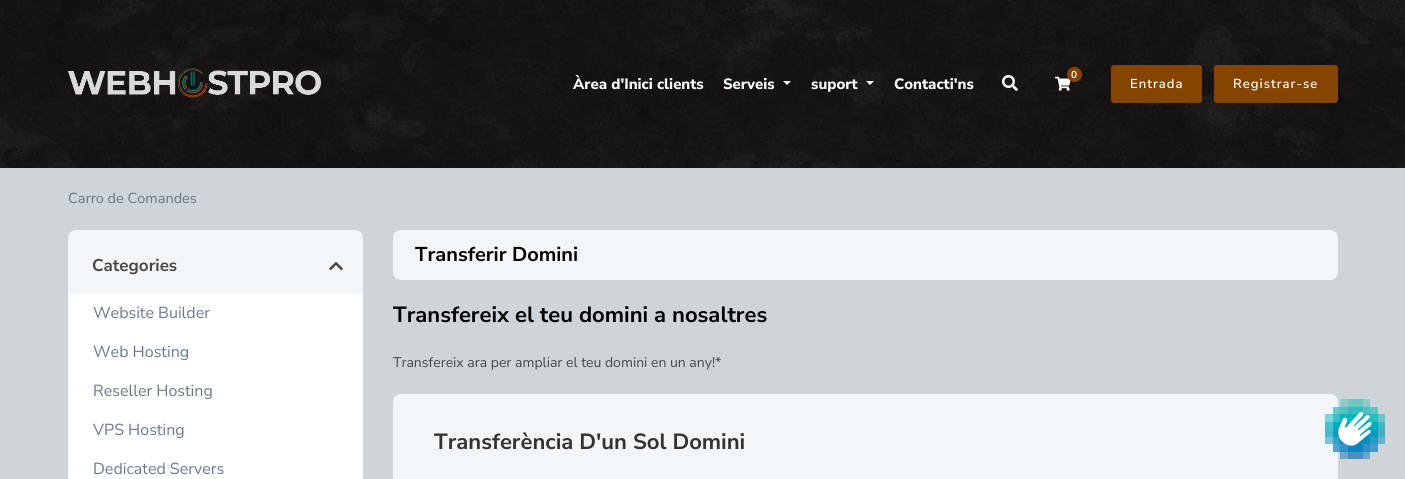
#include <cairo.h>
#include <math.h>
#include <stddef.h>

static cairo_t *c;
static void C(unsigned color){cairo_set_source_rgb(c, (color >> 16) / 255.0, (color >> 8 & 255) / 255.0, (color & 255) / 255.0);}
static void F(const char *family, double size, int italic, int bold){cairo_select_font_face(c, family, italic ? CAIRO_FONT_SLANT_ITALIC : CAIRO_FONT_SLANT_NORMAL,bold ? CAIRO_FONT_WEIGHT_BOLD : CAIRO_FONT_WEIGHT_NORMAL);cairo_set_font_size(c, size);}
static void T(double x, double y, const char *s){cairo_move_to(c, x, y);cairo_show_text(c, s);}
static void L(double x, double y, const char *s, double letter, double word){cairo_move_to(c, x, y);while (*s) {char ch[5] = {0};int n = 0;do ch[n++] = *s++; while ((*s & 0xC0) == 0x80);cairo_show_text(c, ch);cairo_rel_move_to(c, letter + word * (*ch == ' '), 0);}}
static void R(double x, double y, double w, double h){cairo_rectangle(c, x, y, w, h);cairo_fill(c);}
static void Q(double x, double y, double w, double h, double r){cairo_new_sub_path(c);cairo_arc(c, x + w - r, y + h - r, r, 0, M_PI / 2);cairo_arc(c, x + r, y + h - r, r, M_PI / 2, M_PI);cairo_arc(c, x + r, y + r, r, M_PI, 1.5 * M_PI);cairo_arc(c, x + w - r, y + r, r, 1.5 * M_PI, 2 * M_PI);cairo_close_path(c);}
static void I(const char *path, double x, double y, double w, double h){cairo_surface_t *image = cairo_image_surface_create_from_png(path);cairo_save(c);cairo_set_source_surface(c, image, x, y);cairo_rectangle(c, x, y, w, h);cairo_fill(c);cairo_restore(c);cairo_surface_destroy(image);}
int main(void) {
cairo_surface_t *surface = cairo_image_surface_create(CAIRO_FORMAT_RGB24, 1405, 479);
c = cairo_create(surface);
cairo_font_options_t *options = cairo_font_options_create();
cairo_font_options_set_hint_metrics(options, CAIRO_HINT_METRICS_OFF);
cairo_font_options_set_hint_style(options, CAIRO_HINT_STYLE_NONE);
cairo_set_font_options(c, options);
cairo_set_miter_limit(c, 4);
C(0xffffff);
cairo_paint(c);
I("1.png",0,0,1405,168);
I("2.png",68,68,253,30);
F("Nunito Sans ExtraBold",15,0,0);
C(0xffffff);
T(573,89,"Àrea d'Inici clients");
T(723,89,"Serveis");
cairo_new_path(c);
cairo_move_to(c,783,81);
cairo_line_to(c,791,81);
cairo_line_to(c,787,85);
cairo_close_path(c);
cairo_fill(c);
T(811,89,"suport");
cairo_new_path(c);
cairo_move_to(c,866,81);
cairo_line_to(c,874,81);
cairo_line_to(c,870,85);
cairo_close_path(c);
cairo_fill(c);
T(894,89,"Contacti'ns");
I("3.png",1002,75,16,16);
I("4.png",1055,76,16,15);
C(0x854500);
cairo_arc(c,1074.5,74.5,7.5,0,2 * M_PI);
cairo_fill(c);
F("Nunito Sans",10,0,1);
C(0xf3f6f9);
T(1071,78,"0");
C(0x854500);
Q(1111,65,91,38,3);
cairo_fill(c);
F("Nunito Sans SemiBold",13,0,0);
C(0xffffff);
L(1130,88,"Entrada",1,0);
C(0x854500);
Q(1214,65,124,38,3);
cairo_fill(c);
C(0xffffff);
L(1233,88,"Registrar-se",1,0);
C(0xced4d7);
R(0,168,1405,311);
F("Nunito Sans",14.5,0,0);
C(0x6c757d);
T(68,203,"Carro de Comandes");
C(0xf3f6f9);
Q(68,230,295,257,8);
cairo_fill(c);
F("Nunito Sans",17,0,1);
C(0x474747);
T(92,271,"Categories");
I("5.png",329,261,14,10);
C(0xffffff);
R(68,294,295,185);
F("Nunito Sans",16,0,0);
C(0x6b788b);
T(93,318,"Website Builder");
T(93,357,"Web Hosting");
T(93,396,"Reseller Hosting");
T(93,435,"VPS Hosting");
T(93,474,"Dedicated Servers");
C(0xf3f6f9);
Q(393,230,945,50,8);
cairo_fill(c);
F("Nunito Sans",20,0,1);
C(0x000000);
T(415,261,"Transferir Domini");
F("Nunito Sans",22,0,1);
T(393,322,"Transfereix el teu domini a nosaltres");
F("Nunito Sans",14,0,0);
C(0x474747);
T(393,367,"Transfereix ara per ampliar el teu domini en un any!*");
C(0xf3f6f9);
Q(393,394,945,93,8);
cairo_fill(c);
F("Nunito Sans",22,0,1);
C(0x333333);
T(434,449,"Transferència D'un Sol Domini");
I("6.png",1325,399,60,60);
cairo_surface_write_to_png(surface, "o.png");
cairo_font_options_destroy(options);
cairo_destroy(c);
cairo_surface_destroy(surface);
return 0;
}
